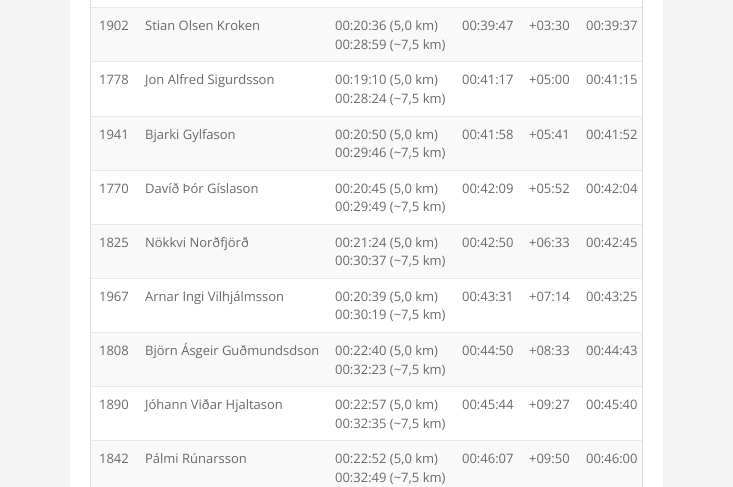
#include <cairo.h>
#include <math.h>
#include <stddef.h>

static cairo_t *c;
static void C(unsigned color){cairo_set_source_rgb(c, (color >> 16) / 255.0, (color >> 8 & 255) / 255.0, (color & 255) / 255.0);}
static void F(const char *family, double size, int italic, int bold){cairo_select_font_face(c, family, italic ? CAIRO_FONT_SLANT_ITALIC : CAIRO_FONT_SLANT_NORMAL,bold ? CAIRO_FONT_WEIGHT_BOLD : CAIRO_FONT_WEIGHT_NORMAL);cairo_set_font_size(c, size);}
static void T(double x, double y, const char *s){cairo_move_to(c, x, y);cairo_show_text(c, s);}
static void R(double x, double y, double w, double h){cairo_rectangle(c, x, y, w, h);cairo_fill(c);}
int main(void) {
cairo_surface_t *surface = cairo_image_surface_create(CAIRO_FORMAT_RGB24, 733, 487);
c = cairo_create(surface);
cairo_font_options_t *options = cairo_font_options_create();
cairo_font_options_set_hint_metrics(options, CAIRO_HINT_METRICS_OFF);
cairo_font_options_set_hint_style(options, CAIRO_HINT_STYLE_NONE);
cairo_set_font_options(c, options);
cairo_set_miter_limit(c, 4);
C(0xf3f3f4);
cairo_paint(c);
C(0xffffff);
R(70,0,593,487);
cairo_rectangle(c,90.5,-.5,552,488);
C(0xdddddd);
cairo_set_line_width(c,1);
cairo_stroke(c);
C(0xf9f9f9);
R(91,8,551,53);
F("Open Sans",13,0,0);
C(0x676a6c);
T(99,30,"1902");
T(145,30,"Stian Olsen Kroken");
T(335,30,"00:20:36 (5,0 km)");
T(335,49,"00:28:59 (~7,5 km)");
T(462,30,"00:39:47");
T(529,30,"+03:30");
C(0xe7eaec);
R(91,7,551,1);
C(0x676a6c);
T(586,30,"00:39:37");
T(99,84,"1778");
T(145,84,"Jon Alfred Sigurdsson");
T(335,84,"00:19:10 (5,0 km)");
T(335,103,"00:28:24 (~7,5 km)");
T(462,84,"00:41:17");
T(529,84,"+05:00");
C(0xe7eaec);
R(91,61,551,1);
C(0x676a6c);
T(586,84,"00:41:15");
C(0xf9f9f9);
R(91,117,551,53);
C(0x676a6c);
T(99,139,"1941");
T(145,139,"Bjarki Gylfason");
T(335,139,"00:20:50 (5,0 km)");
T(335,157,"00:29:46 (~7,5 km)");
T(462,139,"00:41:58");
T(529,139,"+05:41");
C(0xe7eaec);
R(91,116,551,1);
C(0x676a6c);
T(586,139,"00:41:52");
T(99,193,"1770");
T(145,193,"Davíð Þór Gíslason");
T(335,193,"00:20:45 (5,0 km)");
T(335,211,"00:29:49 (~7,5 km)");
T(462,193,"00:42:09");
T(529,193,"+05:52");
C(0xe7eaec);
R(91,170,551,1);
C(0x676a6c);
T(586,193,"00:42:04");
C(0xf9f9f9);
R(91,225,551,53);
C(0x676a6c);
T(99,247,"1825");
T(145,247,"Nökkvi Norðfjörð");
T(335,247,"00:21:24 (5,0 km)");
T(335,265,"00:30:37 (~7,5 km)");
T(462,247,"00:42:50");
T(529,247,"+06:33");
C(0xe7eaec);
R(91,224,551,1);
C(0x676a6c);
T(586,247,"00:42:45");
T(99,301,"1967");
T(145,301,"Arnar Ingi Vilhjálmsson");
T(335,301,"00:20:39 (5,0 km)");
T(335,319,"00:30:19 (~7,5 km)");
T(462,301,"00:43:31");
T(529,301,"+07:14");
C(0xe7eaec);
R(91,278,551,1);
C(0x676a6c);
T(586,301,"00:43:25");
C(0xf9f9f9);
R(91,333,551,53);
C(0x676a6c);
T(99,355,"1808");
T(145,355,"Björn Ásgeir Guðmundsdson");
T(335,355,"00:22:40 (5,0 km)");
T(335,374,"00:32:23 (~7,5 km)");
T(462,355,"00:44:50");
T(529,355,"+08:33");
C(0xe7eaec);
R(91,332,551,1);
C(0x676a6c);
T(586,355,"00:44:43");
T(99,409,"1890");
T(145,409,"Jóhann Viðar Hjaltason");
T(335,409,"00:22:57 (5,0 km)");
T(335,428,"00:32:35 (~7,5 km)");
T(462,409,"00:45:44");
T(529,409,"+09:27");
C(0xe7eaec);
R(91,386,551,1);
C(0x676a6c);
T(586,409,"00:45:40");
C(0xf9f9f9);
R(91,441,551,46);
C(0x676a6c);
T(99,463,"1842");
T(145,463,"Pálmi Rúnarsson");
T(335,463,"00:22:52 (5,0 km)");
T(335,482,"00:32:49 (~7,5 km)");
T(462,463,"00:46:07");
T(529,463,"+09:50");
C(0xe7eaec);
R(91,440,551,1);
C(0x676a6c);
T(586,463,"00:46:00");
cairo_surface_write_to_png(surface, "o.png");
cairo_font_options_destroy(options);
cairo_destroy(c);
cairo_surface_destroy(surface);
return 0;
}
